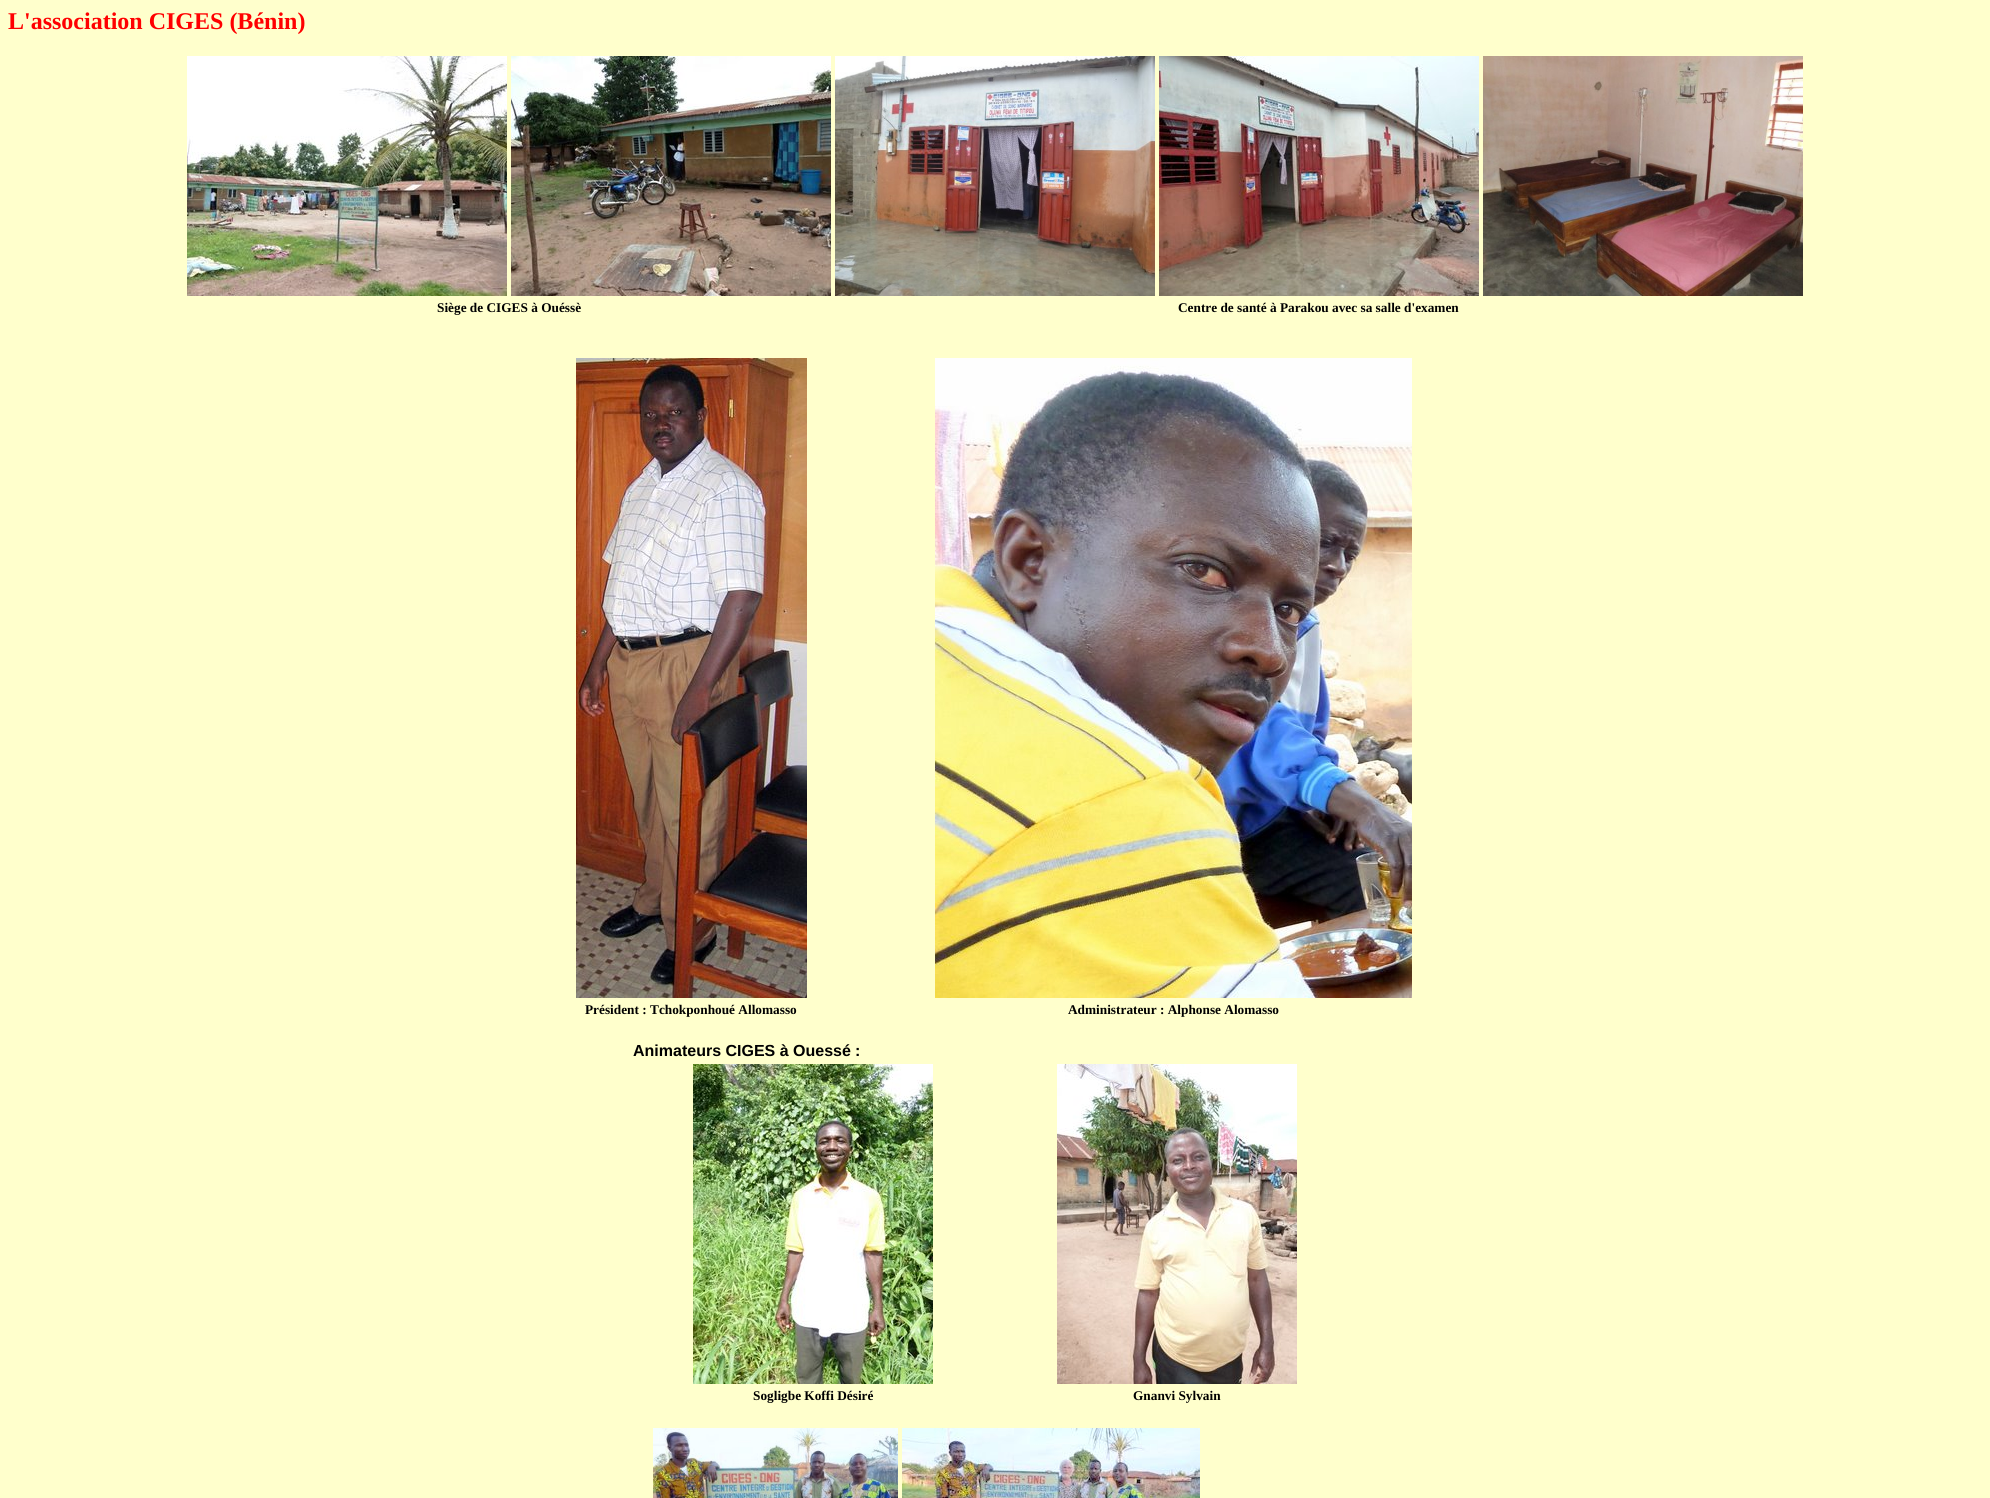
#include <cairo.h>
#include <math.h>
#include <stddef.h>

static cairo_t *c;
static void C(unsigned color){cairo_set_source_rgb(c, (color >> 16) / 255.0, (color >> 8 & 255) / 255.0, (color & 255) / 255.0);}
static void F(const char *family, double size, int italic, int bold){cairo_select_font_face(c, family, italic ? CAIRO_FONT_SLANT_ITALIC : CAIRO_FONT_SLANT_NORMAL,bold ? CAIRO_FONT_WEIGHT_BOLD : CAIRO_FONT_WEIGHT_NORMAL);cairo_set_font_size(c, size);}
static void T(double x, double y, const char *s){cairo_move_to(c, x, y);cairo_show_text(c, s);}
static void I(const char *path, double x, double y, double w, double h){cairo_surface_t *image = cairo_image_surface_create_from_png(path);cairo_save(c);cairo_set_source_surface(c, image, x, y);cairo_rectangle(c, x, y, w, h);cairo_fill(c);cairo_restore(c);cairo_surface_destroy(image);}
int main(void) {
cairo_surface_t *surface = cairo_image_surface_create(CAIRO_FORMAT_RGB24, 1990, 1498);
c = cairo_create(surface);
cairo_font_options_t *options = cairo_font_options_create();
cairo_font_options_set_hint_metrics(options, CAIRO_HINT_METRICS_OFF);
cairo_font_options_set_hint_style(options, CAIRO_HINT_STYLE_NONE);
cairo_set_font_options(c, options);
cairo_set_miter_limit(c, 4);
C(0xffffcc);
cairo_paint(c);
F("Liberation Serif",24,0,1);
C(0xff0000);
T(8,29,"L'association CIGES (Bénin)");
I("1.png",187,56,320,240);
I("2.png",511,56,320,240);
I("3.png",835,56,320,240);
I("4.png",1159,56,320,240);
I("5.png",1483,56,320,240);
F("Liberation Serif",13.3,0,1);
C(0x000000);
T(437,312,"Siège de CIGES à Ouéssè");
T(1178,312,"Centre de santé à Parakou avec sa salle d'examen");
I("6.png",576,358,231,640);
I("7.png",935,358,477,640);
T(585,1014,"Président : Tchokponhoué Allomasso");
T(1068,1014,"Administrateur : Alphonse Alomasso");
F("Liberation Sans",16,0,1);
T(633,1056,"Animateurs CIGES à Ouessé");
T(855,1056,":");
I("8.png",693,1064,240,320);
I("9.png",1057,1064,240,320);
F("Liberation Serif",13.3,0,1);
T(753,1400,"Sogligbe Koffi Désiré");
T(1133,1400,"Gnanvi Sylvain");
I("10.png",653,1428,245,70);
I("11.png",902,1428,298,70);
cairo_surface_write_to_png(surface, "o.png");
cairo_font_options_destroy(options);
cairo_destroy(c);
cairo_surface_destroy(surface);
return 0;
}
